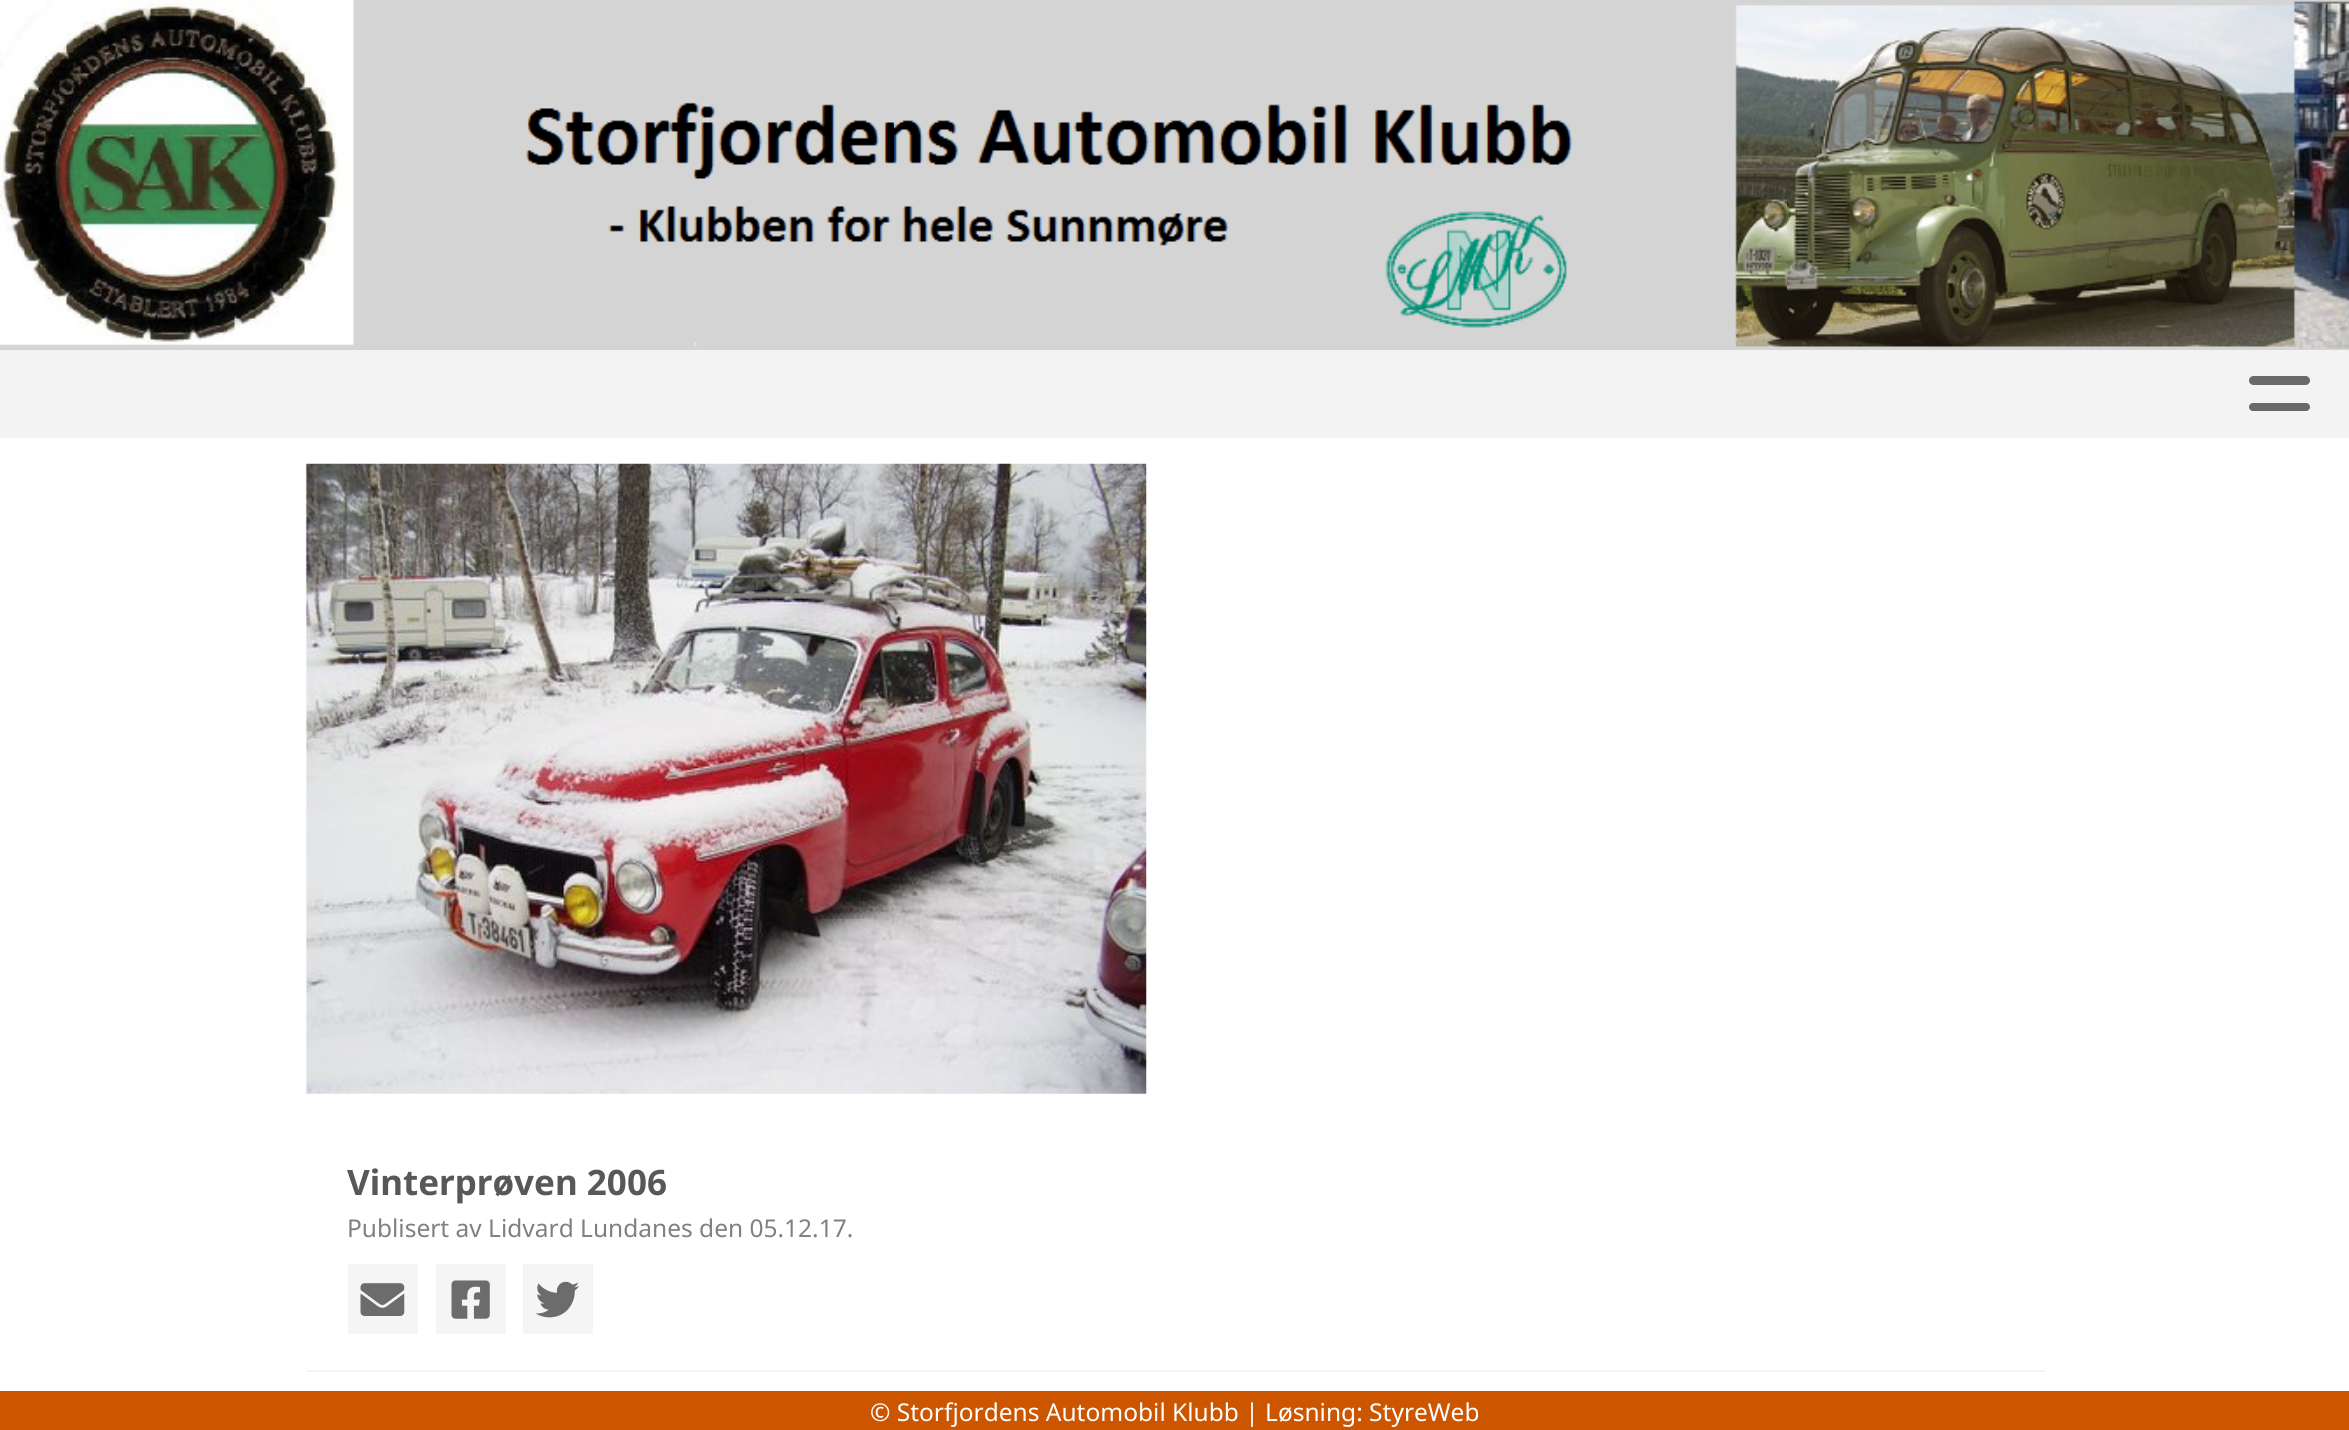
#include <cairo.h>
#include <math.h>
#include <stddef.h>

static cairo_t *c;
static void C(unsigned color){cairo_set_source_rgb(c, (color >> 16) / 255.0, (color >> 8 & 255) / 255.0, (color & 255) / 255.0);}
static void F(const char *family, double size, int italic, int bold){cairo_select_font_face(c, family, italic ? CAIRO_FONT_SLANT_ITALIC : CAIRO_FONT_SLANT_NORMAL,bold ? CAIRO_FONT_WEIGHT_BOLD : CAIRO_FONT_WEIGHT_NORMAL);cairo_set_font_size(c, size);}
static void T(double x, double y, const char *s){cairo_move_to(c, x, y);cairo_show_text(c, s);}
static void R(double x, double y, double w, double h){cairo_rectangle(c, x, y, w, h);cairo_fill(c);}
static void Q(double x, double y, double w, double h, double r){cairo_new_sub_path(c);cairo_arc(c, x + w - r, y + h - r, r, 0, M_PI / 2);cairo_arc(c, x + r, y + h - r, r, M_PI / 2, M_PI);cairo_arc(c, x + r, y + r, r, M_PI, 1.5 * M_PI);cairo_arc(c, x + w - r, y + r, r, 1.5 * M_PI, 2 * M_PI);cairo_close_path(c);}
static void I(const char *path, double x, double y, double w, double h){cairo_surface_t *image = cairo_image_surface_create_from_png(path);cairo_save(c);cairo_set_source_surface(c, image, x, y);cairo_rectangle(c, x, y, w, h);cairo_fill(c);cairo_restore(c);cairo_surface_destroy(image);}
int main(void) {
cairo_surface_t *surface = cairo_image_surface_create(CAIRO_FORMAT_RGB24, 2349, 1430);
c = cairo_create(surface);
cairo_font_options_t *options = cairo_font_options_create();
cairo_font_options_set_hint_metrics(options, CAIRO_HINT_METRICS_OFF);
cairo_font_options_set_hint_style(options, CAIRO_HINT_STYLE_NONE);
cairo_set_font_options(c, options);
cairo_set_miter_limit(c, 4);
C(0xffffff);
cairo_paint(c);
I("1.png",0,0,2349,350);
C(0xf3f3f3);
R(0,350,2349,88);
C(0x696969);
Q(2249,376,61,9,4.5);
cairo_fill(c);
Q(2249,403,61,8,4);
cairo_fill(c);
I("2.png",305,463,842,631);
C(0xf5f5f5);
R(306,1370,1740,2);
F("Noto Sans",35,0,1);
C(0x585858);
T(347,1195,"Vinterprøven 2006");
F("Noto Sans",24.5,0,0);
C(0x808080);
T(347,1237,"Publisert av Lidvard Lundanes den 05.12.17.");
C(0xf5f5f5);
R(348,1264,70,70);
I("3.png",360,1283,45,33);
R(436,1264,70,70);
I("4.png",451,1280,39,39);
R(523,1264,70,70);
I("5.png",535,1281,44,37);
C(0xcc5600);
R(0,1391,2349,39);
C(0xffffff);
T(870,1421,"© Storfjordens Automobil Klubb | Løsning: StyreWeb");
cairo_surface_write_to_png(surface, "o.png");
cairo_font_options_destroy(options);
cairo_destroy(c);
cairo_surface_destroy(surface);
return 0;
}
